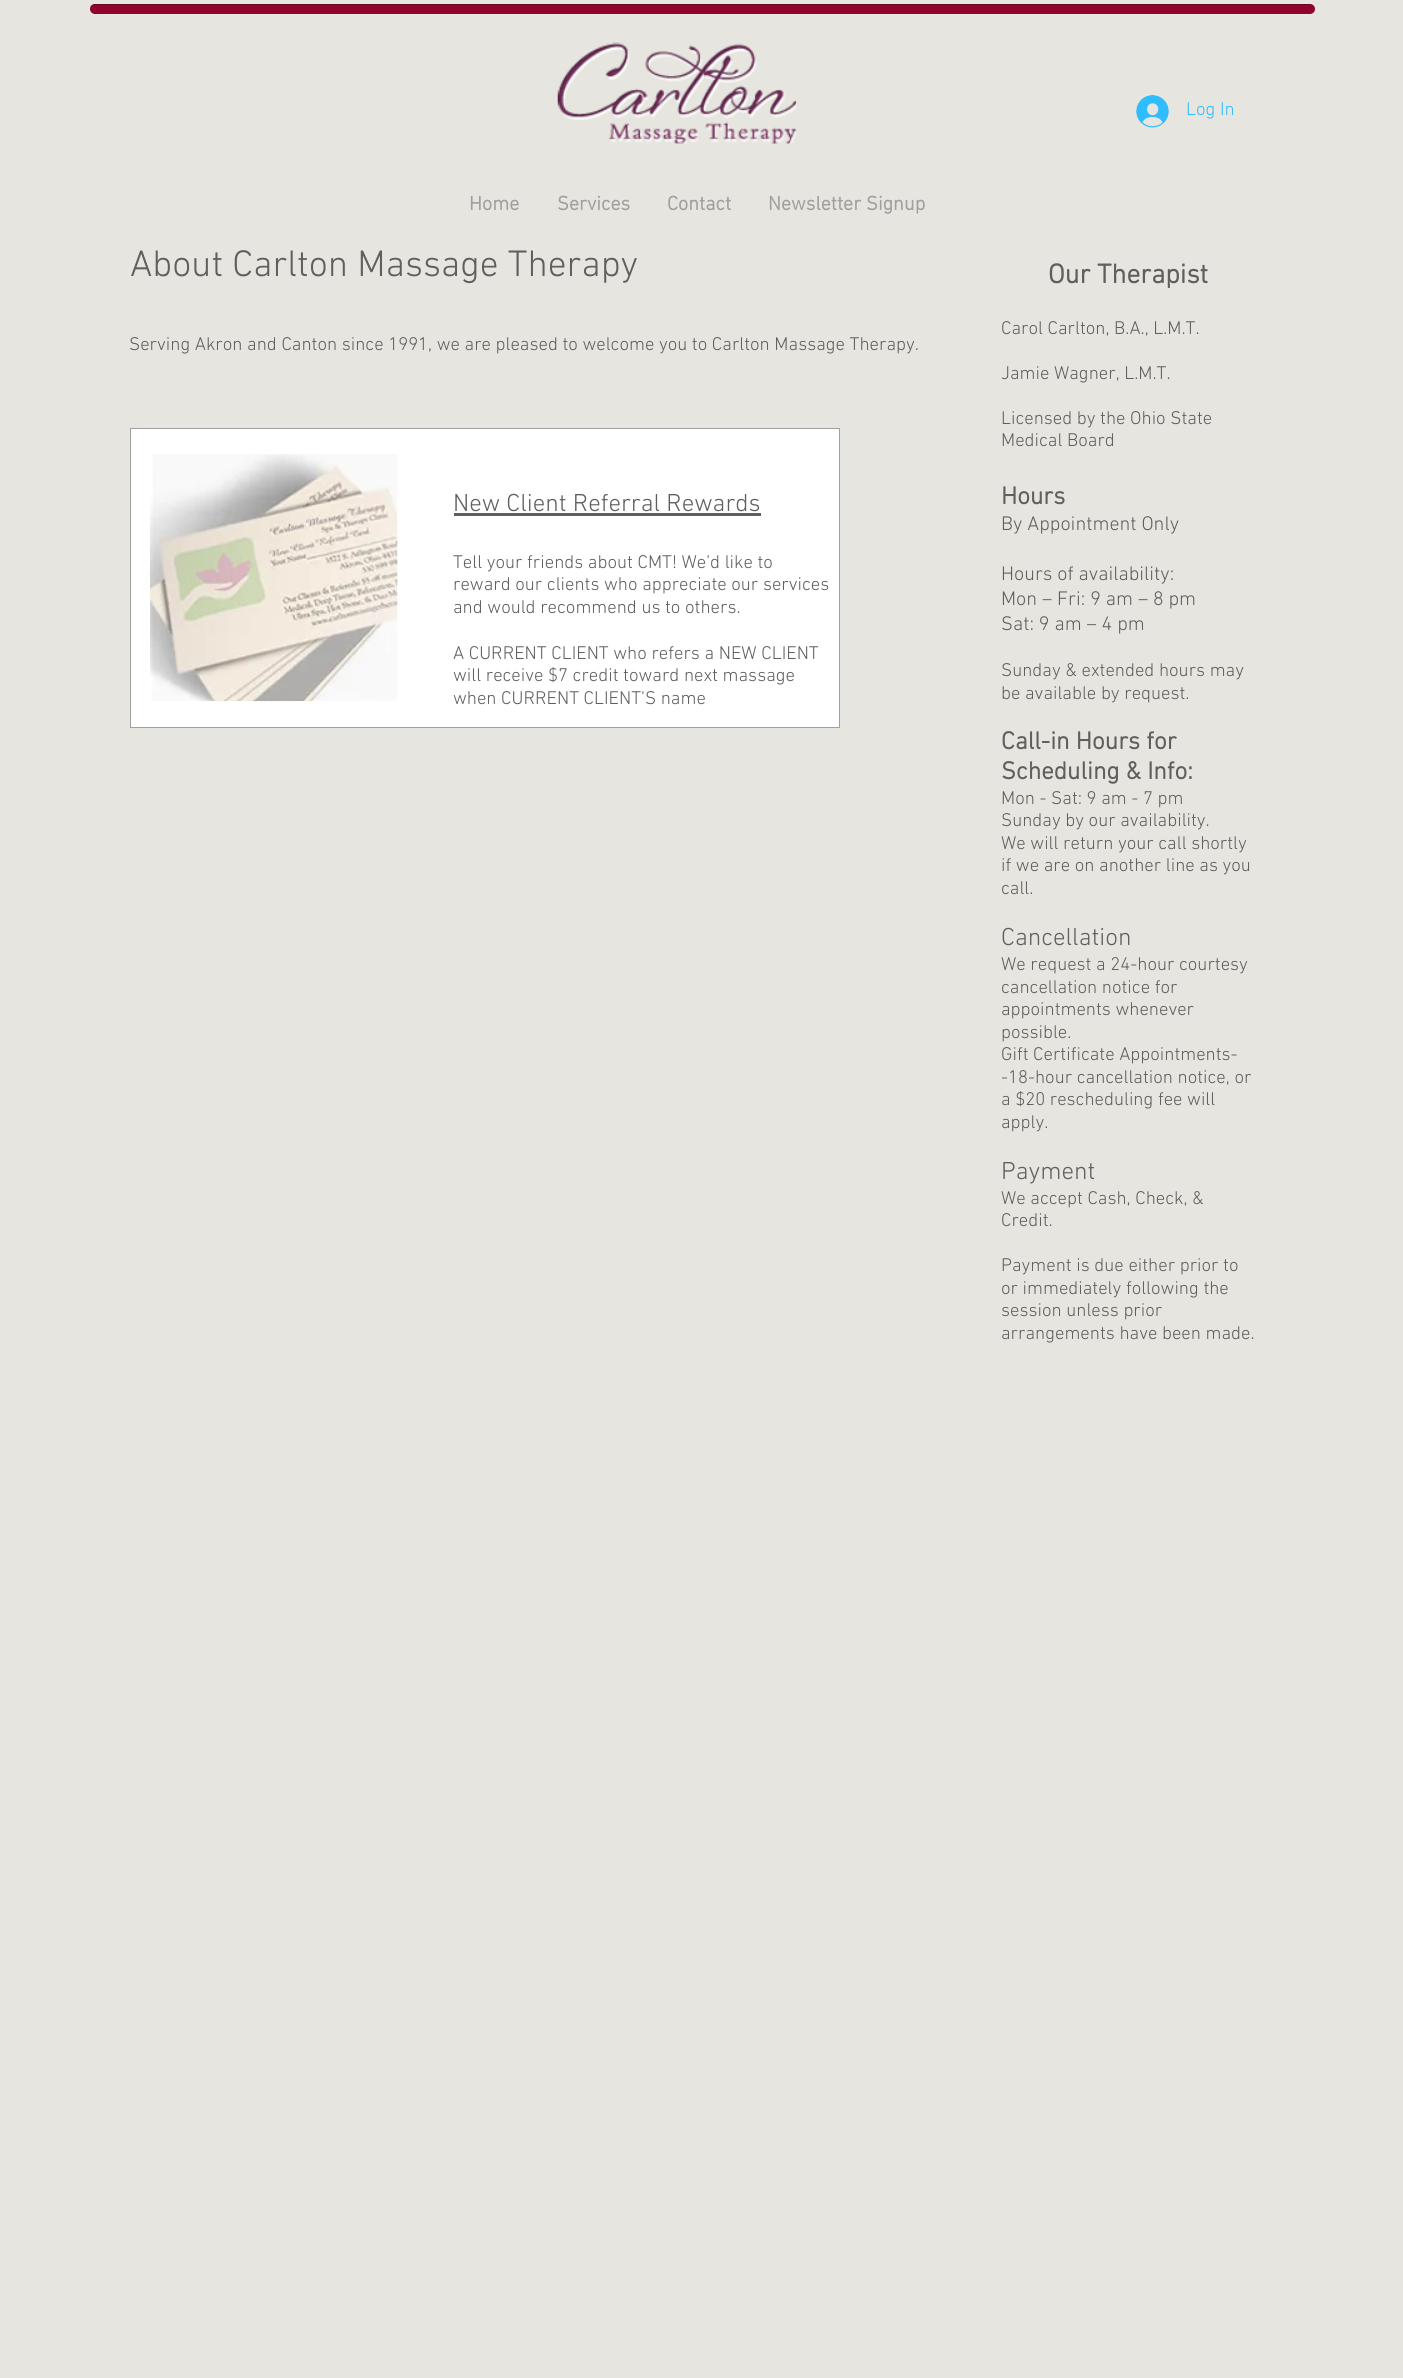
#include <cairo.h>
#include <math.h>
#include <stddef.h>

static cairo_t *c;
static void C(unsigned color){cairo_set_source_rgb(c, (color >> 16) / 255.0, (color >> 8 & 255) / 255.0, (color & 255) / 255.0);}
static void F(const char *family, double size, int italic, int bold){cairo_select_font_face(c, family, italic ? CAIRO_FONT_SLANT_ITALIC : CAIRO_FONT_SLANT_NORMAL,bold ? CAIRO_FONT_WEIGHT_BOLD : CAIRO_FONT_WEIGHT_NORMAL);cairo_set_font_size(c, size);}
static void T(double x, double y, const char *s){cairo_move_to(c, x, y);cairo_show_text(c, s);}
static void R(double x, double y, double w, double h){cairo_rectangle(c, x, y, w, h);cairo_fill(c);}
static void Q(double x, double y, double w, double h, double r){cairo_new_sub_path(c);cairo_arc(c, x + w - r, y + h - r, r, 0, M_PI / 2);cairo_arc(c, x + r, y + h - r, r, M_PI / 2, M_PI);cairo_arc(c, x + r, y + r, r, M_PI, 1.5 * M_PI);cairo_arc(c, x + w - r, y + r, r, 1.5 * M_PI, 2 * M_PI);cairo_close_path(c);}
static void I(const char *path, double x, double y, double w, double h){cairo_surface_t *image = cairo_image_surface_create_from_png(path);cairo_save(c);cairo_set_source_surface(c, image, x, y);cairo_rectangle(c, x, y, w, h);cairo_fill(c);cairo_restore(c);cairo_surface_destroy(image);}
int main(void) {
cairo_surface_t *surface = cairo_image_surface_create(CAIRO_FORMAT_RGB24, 1403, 2378);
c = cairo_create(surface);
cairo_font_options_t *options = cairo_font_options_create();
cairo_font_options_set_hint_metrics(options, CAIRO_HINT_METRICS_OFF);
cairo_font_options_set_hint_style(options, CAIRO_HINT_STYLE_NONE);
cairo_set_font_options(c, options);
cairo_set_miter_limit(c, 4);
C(0xe6e5df);
cairo_paint(c);
C(0xe9e8e2);
cairo_new_path(c);
cairo_move_to(c,90,9);
cairo_curve_to(c,90,12,92,15,95,15);
cairo_line_to(c,1310,15);
cairo_curve_to(c,1313,15,1315,12,1315,9);
cairo_curve_to(c,1315,12,1313,14,1310,14);
cairo_line_to(c,95,14);
cairo_curve_to(c,92,14,90,12,90,9);
cairo_close_path(c);
cairo_fill(c);
C(0x8f032d);
Q(90,4,1225,10,5);
cairo_fill(c);
cairo_set_source_rgba(c,0,0,0,0.25);
cairo_new_path(c);
cairo_move_to(c,95,5);
cairo_line_to(c,1310,5);
cairo_curve_to(c,1313,5,1315,7,1315,9);
cairo_line_to(c,1315,8);
cairo_curve_to(c,1314,6,1312,4,1310,4);
cairo_line_to(c,95,4);
cairo_curve_to(c,93,4,91,5,90,7);
cairo_line_to(c,90,9);
cairo_curve_to(c,90,7,92,5,95,5);
cairo_close_path(c);
cairo_fill(c);
I("1.png",557,42,240,102);
I("2.png",1136,95,33,33);
F("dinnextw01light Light",18.75,0,0);
C(0x30bdff);
T(1186,115,"Log In");
F("dinnextw01light",20,0,1);
C(0xa0a09f);
T(469,210,"Home");
T(557,210,"Services");
T(667,210,"Contact");
T(768,210,"Newsletter Signup");
F("dinnextw01light Light",37.5,0,0);
C(0x605e5e);
T(130,276,"About Carlton Massage Therapy");
F("dinnextw01light",27.5,0,1);
T(1048,283,"Our Therapist");
F("dinnextw01light Light",18.75,0,0);
T(1001,334,"Carol Carlton, B.A., L.M.T.");
T(1001,379,"Jamie Wagner, L.M.T.");
T(1001,424,"Licensed by the Ohio State");
T(1001,446,"Medical Board");
F("dinnextw01light",25,0,1);
T(1001,504,"Hours");
F("dinnextw01light Light",20,0,0);
T(1001,530,"By Appointment Only");
T(1001,580,"Hours of availability:");
T(1001,605,"Mon – Fri: 9 am – 8 pm");
T(1001,630,"Sat: 9 am – 4 pm");
F("dinnextw01light Light",18.75,0,0);
T(1001,676,"Sunday & extended hours may");
T(1001,699,"be available by request.");
F("dinnextw01light",25,0,1);
T(1001,749,"Call-in Hours for");
T(1001,779,"Scheduling & Info:");
F("dinnextw01light Light",18.75,0,0);
T(1001,804,"Mon - Sat: 9 am - 7 pm");
T(1001,826,"Sunday by our availability.");
T(1001,849,"We will return your call shortly");
T(1001,871,"if we are on another line as you");
T(1001,894,"call.");
F("dinnextw01light Light",25,0,0);
T(1001,945,"Cancellation");
F("dinnextw01light Light",18.75,0,0);
T(1001,970,"We request a 24-hour courtesy");
T(1001,993,"cancellation notice for");
T(1001,1015,"appointments whenever");
T(1001,1038,"possible.");
T(1001,1060,"Gift Certificate Appointments-");
T(1001,1083,"-18-hour cancellation notice, or");
T(1001,1105,"a $20 rescheduling fee will");
T(1001,1128,"apply.");
F("dinnextw01light Light",25,0,0);
T(1001,1179,"Payment");
F("dinnextw01light Light",18.75,0,0);
T(1001,1204,"We accept Cash, Check, &");
T(1001,1226,"Credit.");
T(1001,1271,"Payment is due either prior to");
T(1001,1294,"or immediately following the");
T(1001,1316,"session unless prior");
T(1001,1339,"arrangements have been made.");
T(129,350,"Serving Akron and Canton since 1991, we are pleased to welcome you to Carlton Massage Therapy.");
C(0xffffff);
cairo_rectangle(c,130.5,428.5,709,299);
cairo_fill_preserve(c);
C(0xa0a09f);
cairo_set_line_width(c,1);
cairo_stroke(c);
I("3.png",150,454,248,248);
F("dinnextw01light Light",25,0,0);
C(0x605e5e);
T(453,511,"New Client Referral Rewards");
R(454,513,307,3);
F("dinnextw01light Light",18.75,0,0);
T(453,568,"Tell your friends about CMT! We’d like to");
T(453,590,"reward our clients who appreciate our services");
T(453,613,"and would recommend us to others.");
T(453,659,"A CURRENT CLIENT who refers a NEW CLIENT");
T(453,681,"will receive $7 credit toward next massage");
T(453,704,"when CURRENT CLIENT’S name");
cairo_surface_write_to_png(surface, "o.png");
cairo_font_options_destroy(options);
cairo_destroy(c);
cairo_surface_destroy(surface);
return 0;
}
